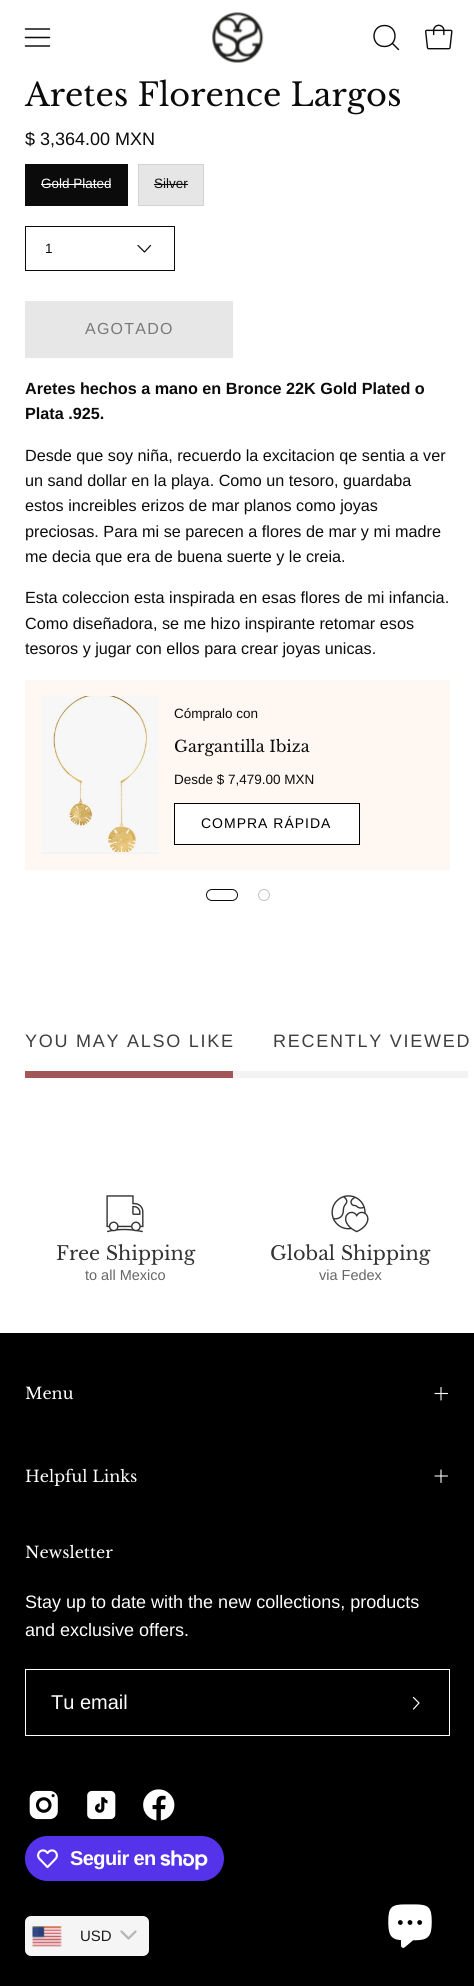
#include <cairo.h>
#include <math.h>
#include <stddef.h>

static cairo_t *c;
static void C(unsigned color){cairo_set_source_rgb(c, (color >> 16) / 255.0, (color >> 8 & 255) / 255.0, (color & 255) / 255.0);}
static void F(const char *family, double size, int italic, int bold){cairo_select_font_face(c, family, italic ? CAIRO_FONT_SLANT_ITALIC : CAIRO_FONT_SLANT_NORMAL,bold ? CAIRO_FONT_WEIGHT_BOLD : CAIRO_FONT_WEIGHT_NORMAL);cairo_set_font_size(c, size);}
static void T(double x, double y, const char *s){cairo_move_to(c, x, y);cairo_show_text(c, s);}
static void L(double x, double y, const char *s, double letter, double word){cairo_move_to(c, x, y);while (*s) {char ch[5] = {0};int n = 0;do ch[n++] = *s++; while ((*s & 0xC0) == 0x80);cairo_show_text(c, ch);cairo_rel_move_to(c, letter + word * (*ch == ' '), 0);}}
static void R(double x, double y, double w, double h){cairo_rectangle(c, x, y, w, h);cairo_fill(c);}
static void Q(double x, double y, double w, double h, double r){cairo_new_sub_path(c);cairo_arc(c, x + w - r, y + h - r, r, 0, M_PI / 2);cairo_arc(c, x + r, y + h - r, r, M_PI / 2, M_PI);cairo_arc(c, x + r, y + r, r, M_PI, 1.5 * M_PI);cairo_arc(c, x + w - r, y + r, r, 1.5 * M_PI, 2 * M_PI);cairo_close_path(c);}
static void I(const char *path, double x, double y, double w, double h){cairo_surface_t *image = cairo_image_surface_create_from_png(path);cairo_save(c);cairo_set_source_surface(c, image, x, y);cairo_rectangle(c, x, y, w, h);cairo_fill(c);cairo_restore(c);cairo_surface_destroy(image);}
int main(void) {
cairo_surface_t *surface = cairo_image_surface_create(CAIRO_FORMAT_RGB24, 474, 1986);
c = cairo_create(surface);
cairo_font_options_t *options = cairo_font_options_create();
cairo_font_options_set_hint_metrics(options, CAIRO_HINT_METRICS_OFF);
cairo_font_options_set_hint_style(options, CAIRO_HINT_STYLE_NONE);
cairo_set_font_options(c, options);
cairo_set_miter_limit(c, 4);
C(0xffffff);
cairo_paint(c);
cairo_new_path(c);
cairo_move_to(c,25.5,37.5);
cairo_line_to(c,49.5,37.5);
cairo_move_to(c,25.5,29);
cairo_line_to(c,49.5,29);
cairo_move_to(c,25.5,46);
cairo_line_to(c,49.5,46);
C(0x0b0b0b);
cairo_set_line_width(c,1.5);
cairo_set_line_cap(c,CAIRO_LINE_CAP_ROUND);
cairo_set_line_join(c,CAIRO_LINE_JOIN_ROUND);
cairo_stroke(c);
I("1.png",212,12,52,51);
cairo_new_path(c);
cairo_move_to(c,384.5,46.5);
cairo_curve_to(c,398.5,46.5,398.5,25.5,384.5,25.5);
cairo_curve_to(c,370.5,25.5,370.5,46.5,384.5,46.5);
cairo_close_path(c);
cairo_move_to(c,392.5,43.5);
cairo_line_to(c,398.5,49.5);
cairo_set_line_width(c,1.4);
cairo_stroke(c);
I("2.png",425,24,28,26);
F("Libre Baskerville",32,0,0);
T(25,106,"Aretes Florence Largos");
F("Liberation Sans",18,0,0);
T(25,145,"$ 3,364.00 MXN");
R(25,164,103,42);
F("Liberation Sans",13.5,0,0);
C(0xffffff);
T(41,188,"Gold Plated");
R(41,184,70,1);
C(0xe6e6e6);
cairo_rectangle(c,138.5,164.5,65,41);
cairo_fill_preserve(c);
C(0xd3d3d3);
cairo_set_line_width(c,1);
cairo_set_line_cap(c,CAIRO_LINE_CAP_BUTT);
cairo_set_line_join(c,CAIRO_LINE_JOIN_MITER);
cairo_stroke(c);
C(0x0b0b0b);
T(154,188,"Silver");
R(154,184,34,1);
cairo_rectangle(c,25.5,226.5,149,44);
cairo_stroke(c);
T(45,253,"1");
cairo_new_path(c);
cairo_move_to(c,150.5,245.5);
cairo_line_to(c,144.5,252);
cairo_line_to(c,138,245.5);
cairo_set_line_width(c,1.2);
cairo_set_line_cap(c,CAIRO_LINE_CAP_ROUND);
cairo_set_line_join(c,CAIRO_LINE_JOIN_ROUND);
cairo_stroke(c);
C(0xe7e7e7);
R(25,301,208,57);
F("Liberation Sans",16,0,0);
C(0x797979);
L(85,334,"AGOTADO",1.25,0);
F("Liberation Sans",16.2,0,1);
C(0x0b0b0b);
T(25,394,"Aretes hechos a mano en Bronce 22K Gold Plated o");
T(25,419,"Plata .925.");
F("Liberation Sans",16.2,0,0);
T(25,461,"Desde que soy niña, recuerdo la excitacion qe sentia a ver");
T(25,486,"un sand dollar en la playa. Como un tesoro, guardaba");
T(25,511,"estos increibles erizos de mar planos como joyas");
T(25,537,"preciosas. Para mi se parecen a flores de mar y mi madre");
T(25,562,"me decia que era de buena suerte y le creia.");
T(25,603,"Esta coleccion esta inspirada en esas flores de mi infancia.");
T(25,629,"Como diseñadora, se me hizo inspirante retomar esos");
T(25,654,"tesoros y jugar con ellos para crear joyas unicas.");
C(0xfff7f2);
R(25,680,425,190);
C(0xf3f3f3);
R(41,851,118,3);
I("3.png",41,696,118,156);
F("Liberation Sans",13.5,0,0);
C(0x0b0b0b);
T(174,718,"Cómpralo con");
F("Libre Baskerville",16,0,0);
T(174,752,"Gargantilla Ibiza");
F("Liberation Sans",13.5,0,0);
T(174,784,"Desde $ 7,479.00 MXN");
C(0xffffff);
cairo_rectangle(c,174.5,803.5,185,41);
cairo_fill_preserve(c);
C(0x000000);
cairo_set_line_width(c,1);
cairo_set_line_cap(c,CAIRO_LINE_CAP_BUTT);
cairo_set_line_join(c,CAIRO_LINE_JOIN_MITER);
cairo_stroke(c);
F("Liberation Sans",14,0,0);
L(201,828,"COMPRA RÁPIDA",1,0);
Q(206.5,889.5,31,11,5.5);
C(0x0b0b0b);
cairo_stroke(c);
cairo_arc(c,264,895,5.5,0,2 * M_PI);
C(0xc2c2c2);
cairo_stroke(c);
F("Liberation Sans",18,0,0);
C(0x3e3e3e);
L(25,1047,"YOU MAY ALSO LIKE",1.75,0);
L(273,1047,"RECENTLY VIEWED",1.75,0);
C(0xf3f3f3);
R(233,1071,235,7);
C(0xa15757);
R(25,1071,208,7);
I("4.png",106,1195,38,38);
F("Libre Baskerville",19.25,0,0);
C(0x333333);
T(56,1260,"Free Shipping");
F("Liberation Sans",14.5,0,0);
C(0x666666);
T(85,1280,"to all Mexico");
I("5.png",331,1195,38,38);
F("Libre Baskerville",19.25,0,0);
C(0x333333);
T(270,1260,"Global Shipping");
F("Liberation Sans",14.5,0,0);
C(0x666666);
T(319,1280,"via Fedex");
C(0x000000);
R(0,1333,474,653);
F("Libre Baskerville",16,0,0);
C(0xffffff);
T(25,1399,"Menu");
cairo_new_path(c);
cairo_move_to(c,435,1393.5);
cairo_line_to(c,447.5,1393.5);
cairo_move_to(c,441,1387.5);
cairo_line_to(c,441,1400);
cairo_set_line_width(c,1.1);
cairo_set_line_cap(c,CAIRO_LINE_CAP_ROUND);
cairo_set_line_join(c,CAIRO_LINE_JOIN_ROUND);
cairo_stroke(c);
T(25,1482,"Helpful Links");
cairo_new_path(c);
cairo_move_to(c,435,1476);
cairo_line_to(c,447.5,1476);
cairo_move_to(c,441,1470);
cairo_line_to(c,441,1482.5);
cairo_stroke(c);
T(25,1558,"Newsletter");
F("Liberation Sans",18,0,0);
T(25,1608,"Stay up to date with the new collections, products");
T(25,1636,"and exclusive offers.");
R(25,1669,425,1);
R(25,1735,358,1);
R(25,1669,1,67);
F("Liberation Sans",20,0,0);
T(51,1709,"Tu email");
R(449,1669,1,67);
R(383,1735,67,1);
cairo_new_path(c);
cairo_move_to(c,413.5,1697.5);
cairo_line_to(c,419,1703);
cairo_line_to(c,413.5,1709);
cairo_set_line_width(c,1.2);
cairo_stroke(c);
I("6.png",29,1790,29,30);
I("7.png",87,1790,29,30);
I("8.png",143,1789,32,32);
C(0x5433eb);
Q(25,1836,199,45,22.5);
cairo_fill(c);
I("9.png",37,1849,21,20);
F("Liberation Sans",20,0,1);
C(0xffffff);
L(70,1865,"Seguir en",-.6,0);
I("10.png",160,1850,48,20);
cairo_new_path(c);
cairo_move_to(c,101,1938.5);
cairo_line_to(c,95.5,1944.5);
cairo_line_to(c,89.5,1938.5);
cairo_stroke(c);
cairo_set_source_rgba(c,1,1,1,0.96);
Q(25,1916,124,40,6);
cairo_fill(c);
I("11.png",32,1926,30,21);
F("Liberation Sans",15,0,0);
C(0x1e1e1e);
T(80,1941,"USD");
cairo_new_path(c);
cairo_move_to(c,121.5,1931.5);
cairo_line_to(c,128.5,1938.5);
cairo_line_to(c,135.5,1931.5);
C(0xb7b7b7);
cairo_set_line_width(c,2.3);
cairo_stroke(c);
I("12.png",388,1904,44,44);
cairo_surface_write_to_png(surface, "o.png");
cairo_font_options_destroy(options);
cairo_destroy(c);
cairo_surface_destroy(surface);
return 0;
}
